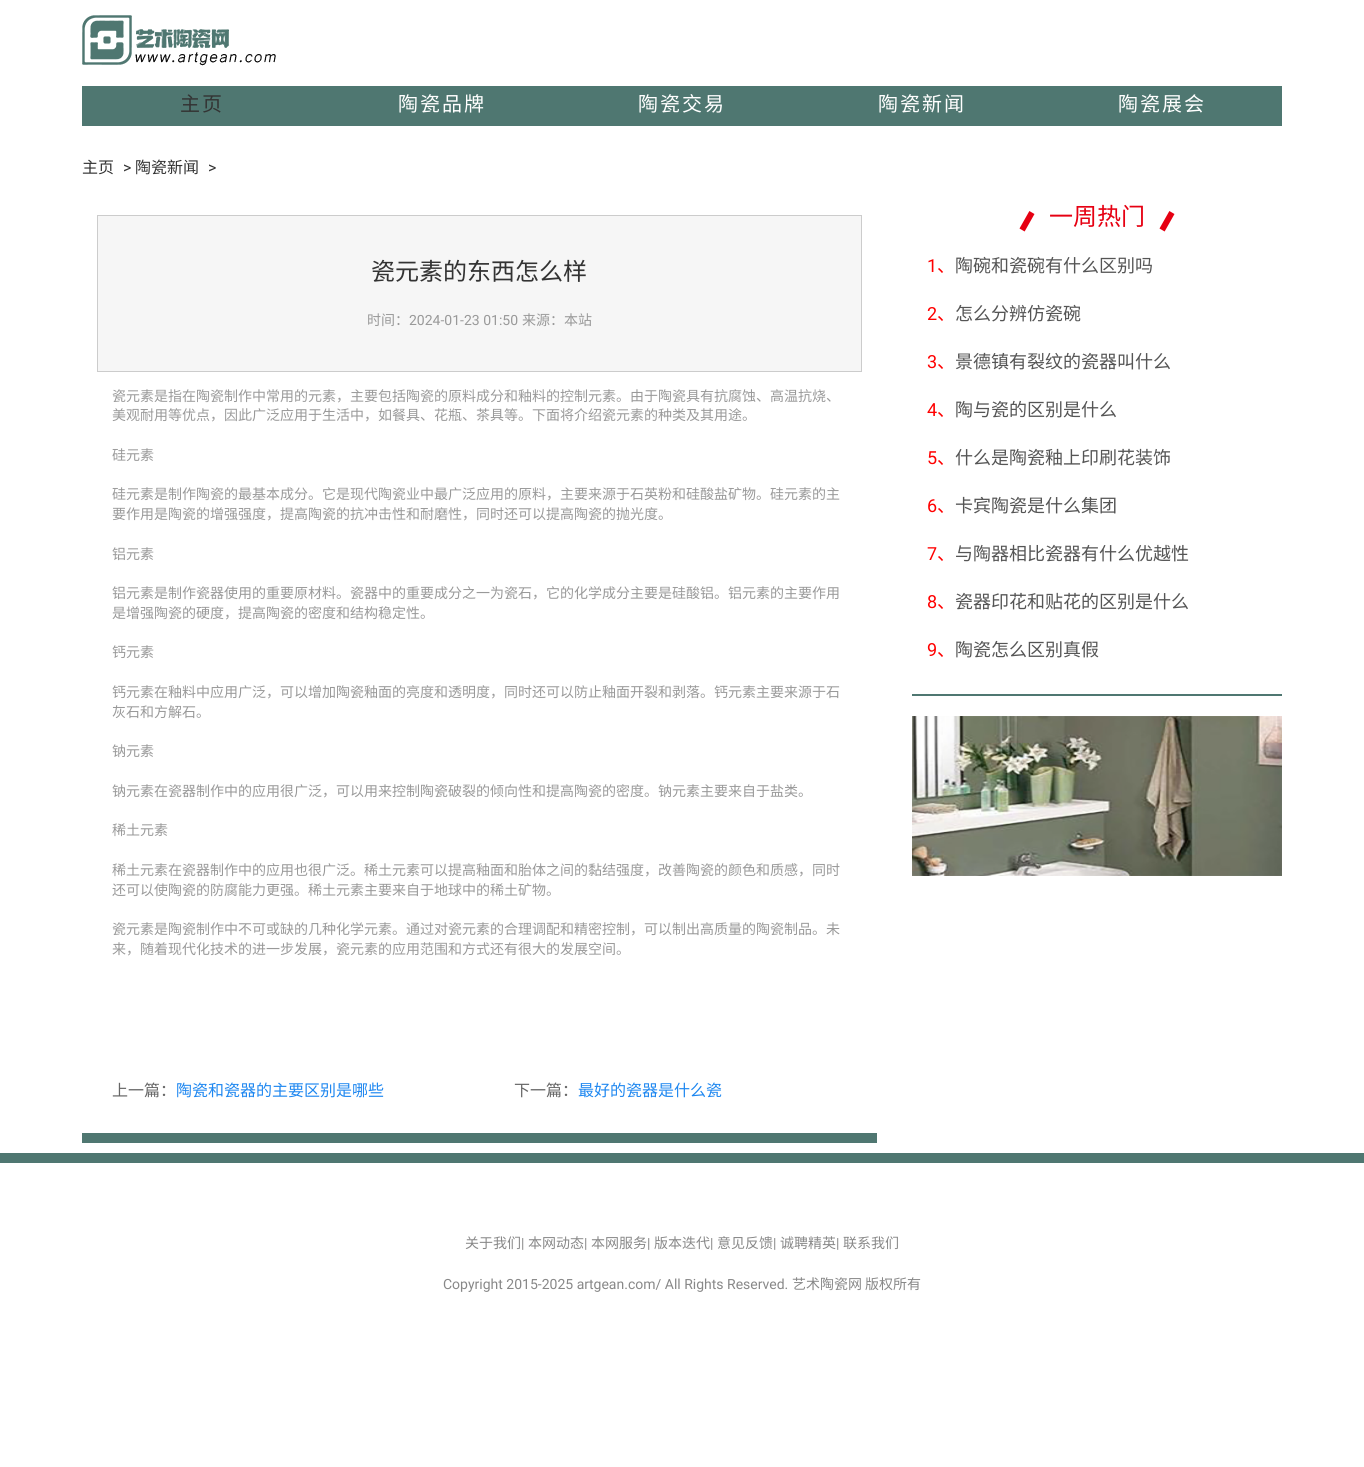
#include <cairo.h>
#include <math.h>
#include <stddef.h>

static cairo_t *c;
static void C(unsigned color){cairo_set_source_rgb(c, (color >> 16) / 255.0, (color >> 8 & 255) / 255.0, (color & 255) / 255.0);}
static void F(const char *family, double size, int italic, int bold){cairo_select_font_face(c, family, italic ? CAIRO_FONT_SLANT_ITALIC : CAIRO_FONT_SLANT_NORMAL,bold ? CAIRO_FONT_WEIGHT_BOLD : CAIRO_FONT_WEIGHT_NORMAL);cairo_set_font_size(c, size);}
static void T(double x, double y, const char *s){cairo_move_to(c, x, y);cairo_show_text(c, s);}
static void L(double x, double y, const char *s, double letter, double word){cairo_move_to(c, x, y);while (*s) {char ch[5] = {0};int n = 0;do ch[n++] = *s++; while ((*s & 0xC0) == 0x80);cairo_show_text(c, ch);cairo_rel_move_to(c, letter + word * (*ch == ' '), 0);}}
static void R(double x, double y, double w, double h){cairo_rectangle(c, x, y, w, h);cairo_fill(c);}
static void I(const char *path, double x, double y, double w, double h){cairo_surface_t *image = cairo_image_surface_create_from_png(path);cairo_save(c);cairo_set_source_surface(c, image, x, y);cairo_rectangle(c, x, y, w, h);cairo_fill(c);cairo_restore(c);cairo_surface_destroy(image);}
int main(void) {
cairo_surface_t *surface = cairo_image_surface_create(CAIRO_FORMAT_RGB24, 1364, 1467);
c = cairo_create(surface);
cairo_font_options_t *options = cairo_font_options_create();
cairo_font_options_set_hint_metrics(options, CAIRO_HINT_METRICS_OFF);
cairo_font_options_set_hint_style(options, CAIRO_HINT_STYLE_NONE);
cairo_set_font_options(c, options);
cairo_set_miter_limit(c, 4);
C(0xffffff);
cairo_paint(c);
I("1.png",82,15,194,51);
C(0x4f7771);
R(82,86,1200,40);
F("Noto Sans CJK SC",20,0,0);
C(0x333333);
L(180,111,"主页",2,0);
C(0xffffff);
L(398,111,"陶瓷品牌",2,0);
L(638,111,"陶瓷交易",2,0);
L(878,111,"陶瓷新闻",2,0);
L(1118,111,"陶瓷展会",2,0);
F("Noto Sans CJK SC",16,0,0);
C(0x333333);
T(82,173,"主页");
F("Roboto",16,0,0);
T(123,173,">");
F("Noto Sans CJK SC",16,0,0);
T(135,173,"陶瓷新闻");
F("Roboto",16,0,0);
T(208,173,">");
C(0x4f7771);
R(82,1133,795,10);
C(0xf6f6f6);
cairo_rectangle(c,97.5,215.5,764,156);
cairo_fill_preserve(c);
C(0xcccccc);
cairo_set_line_width(c,1);
cairo_stroke(c);
F("Noto Sans CJK SC",24,0,0);
C(0x333333);
T(371,280,"瓷元素的东西怎么样");
F("Noto Sans CJK SC",14,0,0);
C(0x999999);
T(367,325,"时间：");
F("Roboto",14,0,0);
T(409,325,"2024-01-23 01:50");
F("Noto Sans CJK SC",14,0,0);
T(522,325,"来源：本站");
T(112,401,"瓷元素是指在陶瓷制作中常用的元素，主要包括陶瓷的原料成分和釉料的控制元素。由于陶瓷具有抗腐蚀、高温抗烧、");
T(112,420,"美观耐用等优点，因此广泛应用于生活中，如餐具、花瓶、茶具等。下面将介绍瓷元素的种类及其用途。");
T(112,460,"硅元素");
T(112,499,"硅元素是制作陶瓷的最基本成分。它是现代陶瓷业中最广泛应用的原料，主要来源于石英粉和硅酸盐矿物。硅元素的主");
T(112,519,"要作用是陶瓷的增强强度，提高陶瓷的抗冲击性和耐磨性，同时还可以提高陶瓷的抛光度。");
T(112,559,"铝元素");
T(112,598,"铝元素是制作瓷器使用的重要原材料。瓷器中的重要成分之一为瓷石，它的化学成分主要是硅酸铝。铝元素的主要作用");
T(112,618,"是增强陶瓷的硬度，提高陶瓷的密度和结构稳定性。");
T(112,657,"钙元素");
T(112,697,"钙元素在釉料中应用广泛，可以增加陶瓷釉面的亮度和透明度，同时还可以防止釉面开裂和剥落。钙元素主要来源于石");
T(112,717,"灰石和方解石。");
T(112,756,"钠元素");
T(112,796,"钠元素在瓷器制作中的应用很广泛，可以用来控制陶瓷破裂的倾向性和提高陶瓷的密度。钠元素主要来自于盐类。");
T(112,835,"稀土元素");
T(112,875,"稀土元素在瓷器制作中的应用也很广泛。稀土元素可以提高釉面和胎体之间的黏结强度，改善陶瓷的颜色和质感，同时");
T(112,895,"还可以使陶瓷的防腐能力更强。稀土元素主要来自于地球中的稀土矿物。");
T(112,934,"瓷元素是陶瓷制作中不可或缺的几种化学元素。通过对瓷元素的合理调配和精密控制，可以制出高质量的陶瓷制品。未");
T(112,954,"来，随着现代化技术的进一步发展，瓷元素的应用范围和方式还有很大的发展空间。");
F("Noto Sans CJK SC",16,0,0);
C(0x666666);
T(112,1096,"上一篇：");
C(0x1e87f0);
T(176,1096,"陶瓷和瓷器的主要区别是哪些");
C(0x666666);
T(514,1096,"下一篇：");
C(0x1e87f0);
T(578,1096,"最好的瓷器是什么瓷");
I("2.png",1019,211,16,21);
F("Noto Sans CJK SC",24,0,0);
C(0xe60012);
T(1049,225,"一周热门");
I("2.png",1159,211,16,21);
F("Roboto",18,0,0);
C(0xff0000);
T(927,272,"1");
F("Noto Sans CJK SC",18,0,0);
T(937,272,"、");
C(0x555555);
T(955,272,"陶碗和瓷碗有什么区别吗");
F("Roboto",18,0,0);
C(0xff0000);
T(927,320,"2");
F("Noto Sans CJK SC",18,0,0);
T(937,320,"、");
C(0x555555);
T(955,320,"怎么分辨仿瓷碗");
F("Roboto",18,0,0);
C(0xff0000);
T(927,368,"3");
F("Noto Sans CJK SC",18,0,0);
T(937,368,"、");
C(0x555555);
T(955,368,"景德镇有裂纹的瓷器叫什么");
F("Roboto",18,0,0);
C(0xff0000);
T(927,416,"4");
F("Noto Sans CJK SC",18,0,0);
T(937,416,"、");
C(0x555555);
T(955,416,"陶与瓷的区别是什么");
F("Roboto",18,0,0);
C(0xff0000);
T(927,464,"5");
F("Noto Sans CJK SC",18,0,0);
T(937,464,"、");
C(0x555555);
T(955,464,"什么是陶瓷釉上印刷花装饰");
F("Roboto",18,0,0);
C(0xff0000);
T(927,512,"6");
F("Noto Sans CJK SC",18,0,0);
T(937,512,"、");
C(0x555555);
T(955,512,"卡宾陶瓷是什么集团");
F("Roboto",18,0,0);
C(0xff0000);
T(927,560,"7");
F("Noto Sans CJK SC",18,0,0);
T(937,560,"、");
C(0x555555);
T(955,560,"与陶器相比瓷器有什么优越性");
F("Roboto",18,0,0);
C(0xff0000);
T(927,608,"8");
F("Noto Sans CJK SC",18,0,0);
T(937,608,"、");
C(0x555555);
T(955,608,"瓷器印花和贴花的区别是什么");
F("Roboto",18,0,0);
C(0xff0000);
T(927,656,"9");
F("Noto Sans CJK SC",18,0,0);
T(937,656,"、");
C(0x555555);
T(955,656,"陶瓷怎么区别真假");
C(0x4f7771);
R(912,694,370,2);
I("3.png",912,716,370,160);
R(0,1153,1364,10);
F("Noto Sans CJK SC",14,0,0);
C(0x888888);
T(465,1248,"关于我们");
F("Roboto",14,0,0);
T(521,1248,"|");
F("Noto Sans CJK SC",14,0,0);
T(528,1248,"本网动态");
F("Roboto",14,0,0);
T(584,1248,"|");
F("Noto Sans CJK SC",14,0,0);
T(591,1248,"本网服务");
F("Roboto",14,0,0);
T(647,1248,"|");
F("Noto Sans CJK SC",14,0,0);
T(654,1248,"版本迭代");
F("Roboto",14,0,0);
T(710,1248,"|");
F("Noto Sans CJK SC",14,0,0);
T(717,1248,"意见反馈");
F("Roboto",14,0,0);
T(773,1248,"|");
F("Noto Sans CJK SC",14,0,0);
T(780,1248,"诚聘精英");
F("Roboto",14,0,0);
T(836,1248,"|");
F("Noto Sans CJK SC",14,0,0);
T(843,1248,"联系我们");
F("Roboto",14,0,0);
T(443,1289,"Copyright 2015-2025 artgean.com/ All Rights Reserved.");
F("Noto Sans CJK SC",14,0,0);
T(792,1289,"艺术陶瓷网");
T(865,1289,"版权所有");
cairo_surface_write_to_png(surface, "o.png");
cairo_font_options_destroy(options);
cairo_destroy(c);
cairo_surface_destroy(surface);
return 0;
}
